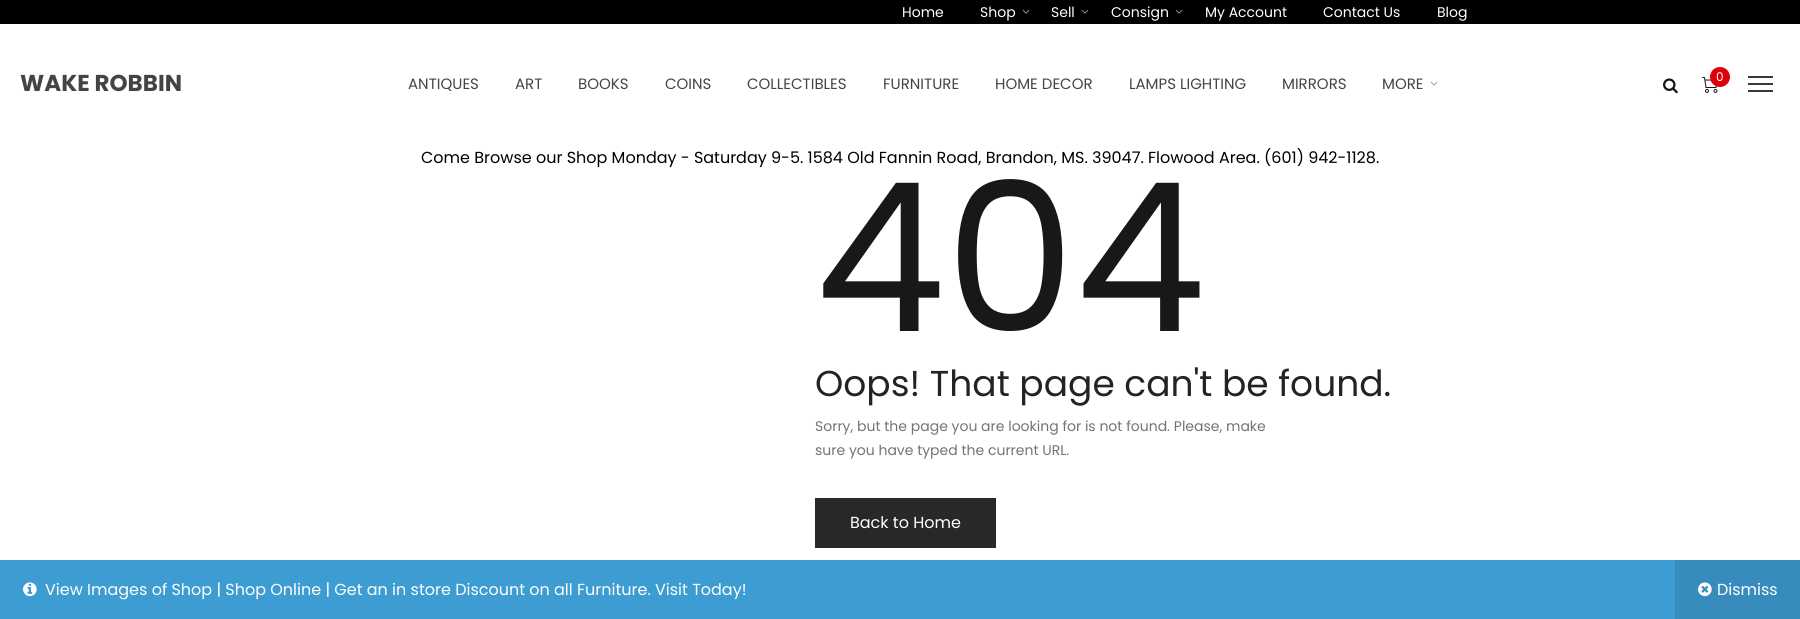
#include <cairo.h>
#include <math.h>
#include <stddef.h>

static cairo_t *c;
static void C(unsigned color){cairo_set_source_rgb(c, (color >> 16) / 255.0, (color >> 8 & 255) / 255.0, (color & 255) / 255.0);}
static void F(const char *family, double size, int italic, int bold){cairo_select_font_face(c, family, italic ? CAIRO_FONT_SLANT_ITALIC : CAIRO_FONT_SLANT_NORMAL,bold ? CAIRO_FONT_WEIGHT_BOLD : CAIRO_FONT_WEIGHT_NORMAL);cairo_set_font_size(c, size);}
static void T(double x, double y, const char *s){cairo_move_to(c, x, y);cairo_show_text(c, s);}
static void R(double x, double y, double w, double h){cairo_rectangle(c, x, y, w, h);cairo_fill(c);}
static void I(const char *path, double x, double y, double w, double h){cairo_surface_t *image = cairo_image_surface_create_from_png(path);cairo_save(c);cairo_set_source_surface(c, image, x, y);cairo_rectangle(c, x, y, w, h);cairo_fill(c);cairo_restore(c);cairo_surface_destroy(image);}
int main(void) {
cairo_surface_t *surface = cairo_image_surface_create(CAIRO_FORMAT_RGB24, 1800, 619);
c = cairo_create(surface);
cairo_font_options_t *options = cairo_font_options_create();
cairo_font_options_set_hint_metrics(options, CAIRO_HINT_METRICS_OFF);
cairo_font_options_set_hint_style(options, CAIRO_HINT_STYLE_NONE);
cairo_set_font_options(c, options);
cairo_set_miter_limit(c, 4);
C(0xffffff);
cairo_paint(c);
C(0x000000);
R(0,0,1800,24);
F("Poppins",14,0,0);
C(0xffffff);
T(902,17,"Home");
T(980,17,"Shop");
I("1.png",1022,9,8,5);
T(1051,17,"Sell");
I("1.png",1081,9,8,5);
T(1111,17,"Consign");
I("1.png",1175,9,8,5);
T(1205,17,"My Account");
T(1323,17,"Contact Us");
T(1437,17,"Blog");
F("Poppins",23,0,1);
C(0x444444);
T(20,91,"WAKE ROBBIN");
F("Poppins",15,0,0);
T(408,89,"ANTIQUES");
T(515,89,"ART");
T(578,89,"BOOKS");
T(665,89,"COINS");
T(747,89,"COLLECTIBLES");
T(883,89,"FURNITURE");
T(995,89,"HOME DECOR");
T(1129,89,"LAMPS LIGHTING");
T(1282,89,"MIRRORS");
T(1382,89,"MORE");
I("2.png",1430,81,8,5);
I("3.png",1663,78,15,16);
I("4.png",1702,77,16,16);
C(0xdc0109);
cairo_arc(c,1720,77,10,0,2 * M_PI);
cairo_fill(c);
F("Poppins",12,0,0);
C(0xffffff);
T(1716,81,"0");
C(0x383838);
R(1748,76,25,2);
R(1748,83,25,2);
R(1748,90,25,2);
F("Poppins",16,0,0);
C(0x000000);
T(421,163,"Come Browse our Shop Monday - Saturday 9-5. 1584 Old Fannin Road, Brandon, MS. 39047. Flowood Area. (601) 942-1128.");
F("Poppins",207,0,0);
C(0x181818);
T(815,331,"404");
F("Poppins",36,0,0);
C(0x232324);
T(815,396,"Oops! That page can't be found.");
F("Poppins",14,0,0);
C(0x737373);
T(815,431,"Sorry, but the page you are looking for is not found. Please, make");
T(815,455,"sure you have typed the current URL.");
C(0x282828);
R(815,498,181,50);
F("Poppins",16,0,0);
C(0xffffff);
T(850,528,"Back to Home");
C(0x3d9cd2);
R(0,560,1675,59);
I("5.png",23,582,14,15);
C(0xffffff);
T(45,595,"View Images of Shop | Shop Online | Get an in store Discount on all Furniture. Visit Today!");
C(0x378cbd);
R(1675,560,125,59);
I("6.png",1698,582,14,15);
C(0xffffff);
T(1717,595,"Dismiss");
cairo_surface_write_to_png(surface, "o.png");
cairo_font_options_destroy(options);
cairo_destroy(c);
cairo_surface_destroy(surface);
return 0;
}
